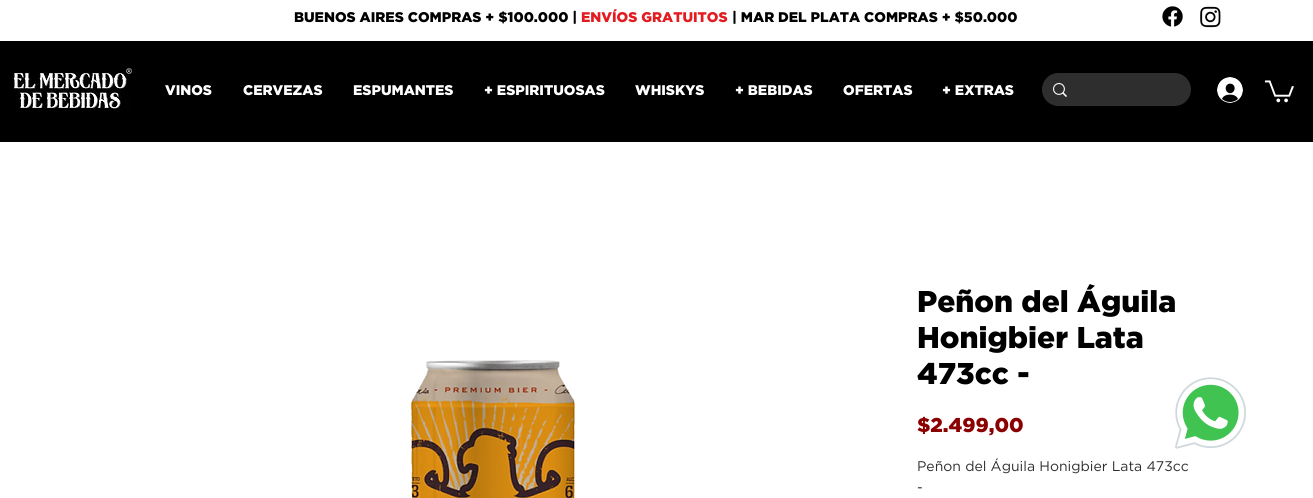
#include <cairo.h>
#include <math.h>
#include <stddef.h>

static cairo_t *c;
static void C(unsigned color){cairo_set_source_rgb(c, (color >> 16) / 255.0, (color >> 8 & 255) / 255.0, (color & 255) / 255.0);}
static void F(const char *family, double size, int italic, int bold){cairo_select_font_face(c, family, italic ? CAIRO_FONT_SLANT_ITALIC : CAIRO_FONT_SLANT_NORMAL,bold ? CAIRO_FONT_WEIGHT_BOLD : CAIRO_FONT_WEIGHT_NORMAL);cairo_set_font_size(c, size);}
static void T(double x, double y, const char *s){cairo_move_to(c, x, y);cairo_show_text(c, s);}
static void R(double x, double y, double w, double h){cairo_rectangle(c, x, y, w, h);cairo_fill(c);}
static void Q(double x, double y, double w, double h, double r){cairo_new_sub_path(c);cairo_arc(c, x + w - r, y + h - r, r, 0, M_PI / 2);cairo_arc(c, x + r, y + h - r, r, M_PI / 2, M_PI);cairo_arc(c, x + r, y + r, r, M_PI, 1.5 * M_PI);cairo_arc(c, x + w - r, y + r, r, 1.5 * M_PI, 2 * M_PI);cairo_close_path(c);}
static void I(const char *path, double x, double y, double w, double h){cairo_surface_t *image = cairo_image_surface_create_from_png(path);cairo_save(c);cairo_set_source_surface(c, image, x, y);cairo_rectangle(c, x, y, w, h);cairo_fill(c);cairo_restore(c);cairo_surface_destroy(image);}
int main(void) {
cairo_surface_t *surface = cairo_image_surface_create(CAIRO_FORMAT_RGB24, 1313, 498);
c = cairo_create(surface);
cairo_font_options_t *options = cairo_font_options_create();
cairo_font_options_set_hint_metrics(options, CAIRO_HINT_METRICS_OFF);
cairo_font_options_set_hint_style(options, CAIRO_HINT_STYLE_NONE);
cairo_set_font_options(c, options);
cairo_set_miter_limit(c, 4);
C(0x000000);
cairo_paint(c);
C(0xffffff);
R(0,0,1313,41);
F("Gotham Black",14,0,0);
C(0x000000);
T(294,22,"BUENOS AIRES COMPRAS + $100.000 |");
C(0xe21c21);
T(581,22,"ENVÍOS GRATUITOS");
C(0x000000);
T(732,22,"| MAR DEL PLATA COMPRAS + $50.000");
I("1.png",1162,6,21,21);
I("2.png",1200,6,21,22);
I("3.png",14,68,118,44);
C(0xffffff);
T(165,95,"VINOS");
T(243,95,"CERVEZAS");
T(353,95,"ESPUMANTES");
T(484,95,"+ ESPIRITUOSAS");
T(635,95,"WHISKYS");
T(735,95,"+ BEBIDAS");
T(843,95,"OFERTAS");
T(942,95,"+ EXTRAS");
C(0x2f2e2e);
Q(1042,73,149,33,16.5);
cairo_fill(c);
I("4.png",1053,83,14,14);
I("5.png",1217,77,26,26);
I("6.png",1265,80,29,23);
C(0xffffff);
R(0,142,1313,356);
I("7.png",410,360,165,138);
F("Gotham Black",30,0,0);
C(0x000000);
T(917,312,"Peñon del Águila");
T(917,348,"Honigbier Lata");
T(917,384,"473cc -");
F("Gotham Black",20,0,0);
C(0x8b0000);
T(917,432,"$2.499,00");
F("Gotham",14,0,0);
C(0x2f2e2e);
T(917,471,"Peñon del Águila Honigbier Lata 473cc");
T(917,492,"-");
I("8.png",1175,377,71,72);
cairo_surface_write_to_png(surface, "o.png");
cairo_font_options_destroy(options);
cairo_destroy(c);
cairo_surface_destroy(surface);
return 0;
}
